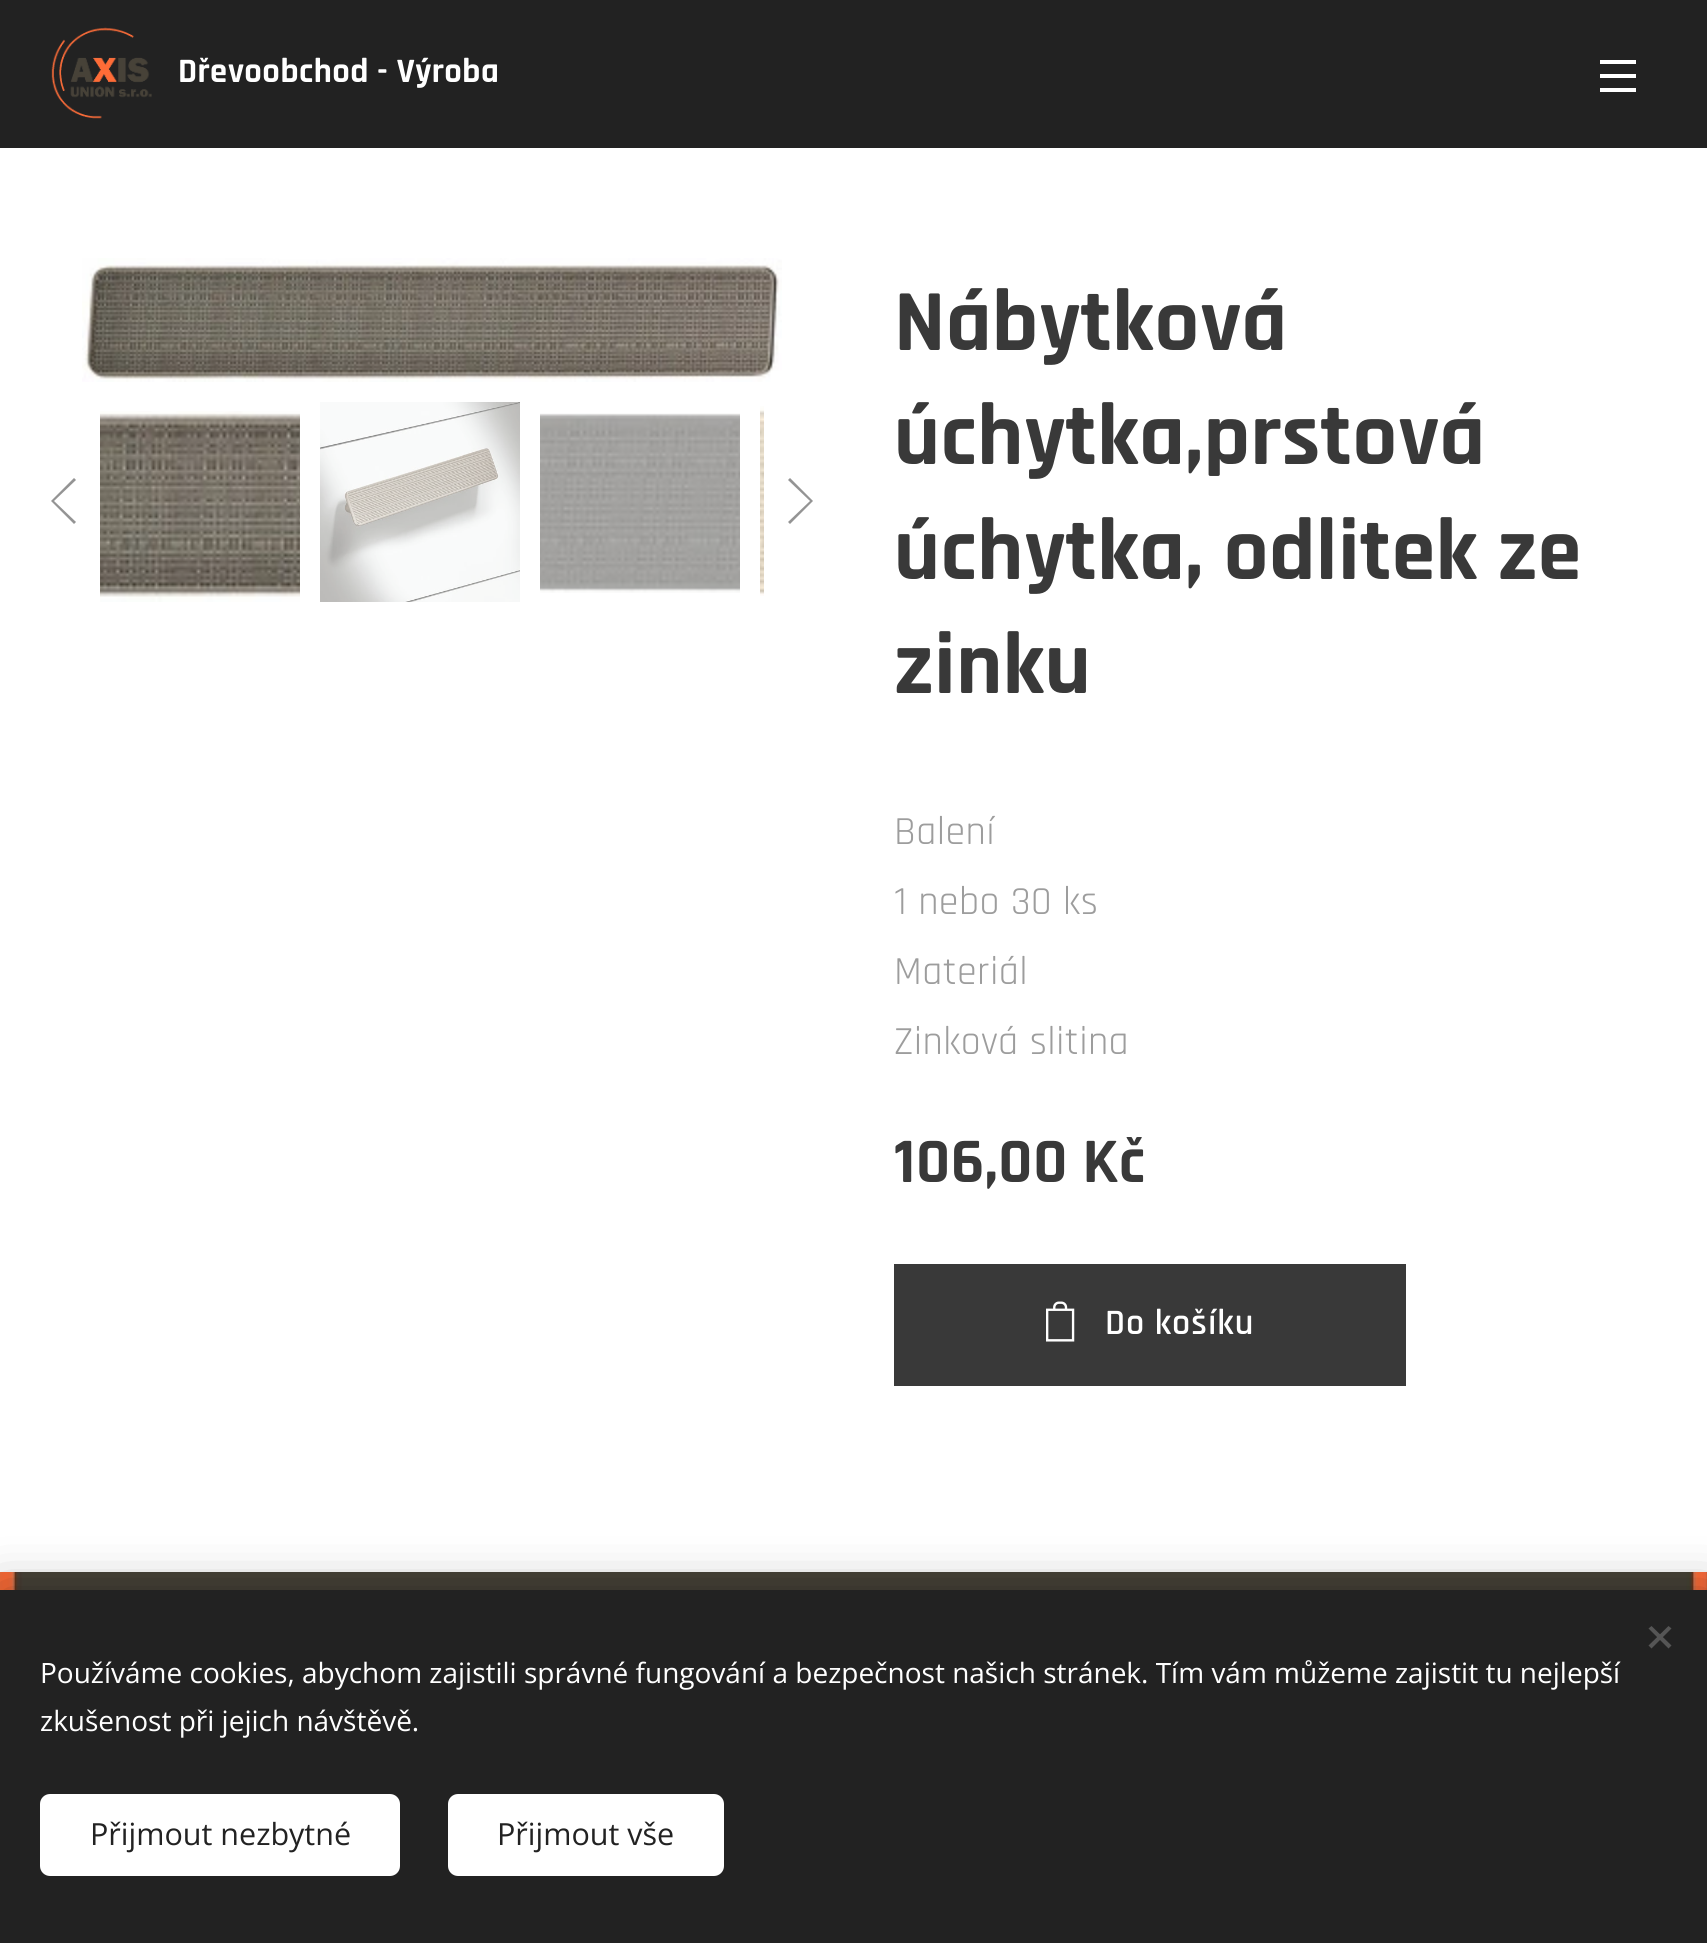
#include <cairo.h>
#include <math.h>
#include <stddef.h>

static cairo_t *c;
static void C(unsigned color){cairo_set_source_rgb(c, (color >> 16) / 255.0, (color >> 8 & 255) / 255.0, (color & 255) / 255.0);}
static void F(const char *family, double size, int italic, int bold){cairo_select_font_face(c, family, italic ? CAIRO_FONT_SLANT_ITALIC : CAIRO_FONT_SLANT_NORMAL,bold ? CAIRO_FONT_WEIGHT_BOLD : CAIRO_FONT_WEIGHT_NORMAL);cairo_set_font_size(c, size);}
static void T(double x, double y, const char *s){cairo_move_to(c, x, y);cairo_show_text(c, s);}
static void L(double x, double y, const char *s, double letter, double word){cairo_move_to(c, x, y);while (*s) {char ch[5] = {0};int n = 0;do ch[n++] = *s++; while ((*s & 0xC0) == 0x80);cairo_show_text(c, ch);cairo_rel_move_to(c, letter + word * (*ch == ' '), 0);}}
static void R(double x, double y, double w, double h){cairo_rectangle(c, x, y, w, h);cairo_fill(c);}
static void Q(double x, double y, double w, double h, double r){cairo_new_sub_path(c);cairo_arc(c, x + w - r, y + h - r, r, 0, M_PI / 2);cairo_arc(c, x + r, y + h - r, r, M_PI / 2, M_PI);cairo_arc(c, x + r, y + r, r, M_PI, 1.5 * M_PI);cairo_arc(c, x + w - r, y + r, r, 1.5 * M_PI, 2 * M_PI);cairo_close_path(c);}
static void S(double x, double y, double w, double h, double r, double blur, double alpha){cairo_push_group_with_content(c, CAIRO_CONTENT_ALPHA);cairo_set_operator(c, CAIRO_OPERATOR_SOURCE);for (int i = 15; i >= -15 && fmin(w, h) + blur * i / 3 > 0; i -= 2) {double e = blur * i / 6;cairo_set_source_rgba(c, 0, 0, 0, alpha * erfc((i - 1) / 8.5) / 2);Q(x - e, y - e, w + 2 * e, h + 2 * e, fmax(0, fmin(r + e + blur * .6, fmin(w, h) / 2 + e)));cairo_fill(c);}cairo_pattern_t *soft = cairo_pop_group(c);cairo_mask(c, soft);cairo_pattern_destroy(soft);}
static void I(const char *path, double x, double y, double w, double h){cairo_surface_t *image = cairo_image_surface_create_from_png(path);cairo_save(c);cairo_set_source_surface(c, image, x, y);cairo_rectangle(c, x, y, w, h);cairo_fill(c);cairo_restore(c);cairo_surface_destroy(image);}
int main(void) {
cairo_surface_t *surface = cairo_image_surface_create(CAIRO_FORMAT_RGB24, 1707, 1943);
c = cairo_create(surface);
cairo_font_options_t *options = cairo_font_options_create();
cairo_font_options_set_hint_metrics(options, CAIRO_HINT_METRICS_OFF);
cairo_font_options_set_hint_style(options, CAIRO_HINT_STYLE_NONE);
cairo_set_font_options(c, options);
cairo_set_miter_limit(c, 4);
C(0xffffff);
cairo_paint(c);
C(0x222222);
R(0,0,1707,148);
I("1.png",51,27,101,92);
F("Rajdhani",34.5,0,1);
C(0xffffff);
L(178,82,"Dřevoobchod - Výroba",.5,0);
R(1600,74,36,4);
R(1600,60,36,4);
R(1600,88,36,4);
I("2.png",82,258,700,124);
C(0x949494);
cairo_new_path(c);
cairo_move_to(c,74,524);
cairo_line_to(c,76,522);
cairo_line_to(c,54,501);
cairo_line_to(c,76,480);
cairo_line_to(c,74,478);
cairo_line_to(c,51,501);
cairo_close_path(c);
cairo_fill(c);
I("3.png",100,411,200,191);
I("4.png",320,402,200,200);
I("5.png",540,413,200,180);
I("6.png",760,406,4,190);
cairo_new_path(c);
cairo_move_to(c,790,478);
cairo_line_to(c,788,480);
cairo_line_to(c,810,501);
cairo_line_to(c,788,522);
cairo_line_to(c,790,524);
cairo_line_to(c,813,501);
cairo_close_path(c);
cairo_fill(c);
F("Rajdhani",88,0,1);
C(0x393939);
L(894,350,"Nábytková",.5,0);
L(894,464,"úchytka,prstová",.5,0);
L(894,579,"úchytka, odlitek ze",.5,0);
L(894,693,"zinku",.5,0);
F("Rajdhani",40,0,0);
C(0x9d9d9d);
L(894,844,"Balení",.4,0);
L(894,914,"1 nebo 30 ks",.4,0);
L(894,984,"Materiál",.4,0);
L(894,1054,"Zinková slitina",.4,0);
F("Rajdhani",64,0,1);
C(0x393939);
L(894,1182,"106,00 Kč",.5,0);
R(894,1264,512,122);
I("7.png",1046,1301,29,41);
F("Rajdhani SemiBold",36,0,0);
C(0xffffff);
L(1105,1334,"Do košíku",1,0);
I("8.png",0,1572,1707,18);
C(0x000000);
S(0,1590,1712,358,0,25,.33);
C(0x222222);
R(0,1590,1707,353);
C(0x555555);
cairo_new_path(c);
cairo_move_to(c,1648.5,1645.5);
cairo_line_to(c,1668.5,1626);
cairo_line_to(c,1671.5,1628.5);
cairo_line_to(c,1651.5,1648.5);
cairo_close_path(c);
cairo_fill(c);
cairo_new_path(c);
cairo_move_to(c,1651.5,1626);
cairo_line_to(c,1671.5,1645.5);
cairo_line_to(c,1668.5,1648.5);
cairo_line_to(c,1648.5,1628.5);
cairo_close_path(c);
cairo_fill(c);
F("Open Sans",28,0,0);
C(0xffffff);
T(40,1683,"Používáme cookies, abychom zajistili správné fungování a bezpečnost našich stránek. Tím vám můžeme zajistit tu nejlepší");
T(40,1731,"zkušenost při jejich návštěvě.");
Q(40,1794,360,82,10);
cairo_fill(c);
F("Open Sans",30.5,0,0);
C(0x222222);
T(90,1845,"Přijmout nezbytné");
C(0xffffff);
Q(448,1794,276,82,10);
cairo_fill(c);
C(0x222222);
T(497,1845,"Přijmout vše");
cairo_surface_write_to_png(surface, "o.png");
cairo_font_options_destroy(options);
cairo_destroy(c);
cairo_surface_destroy(surface);
return 0;
}
